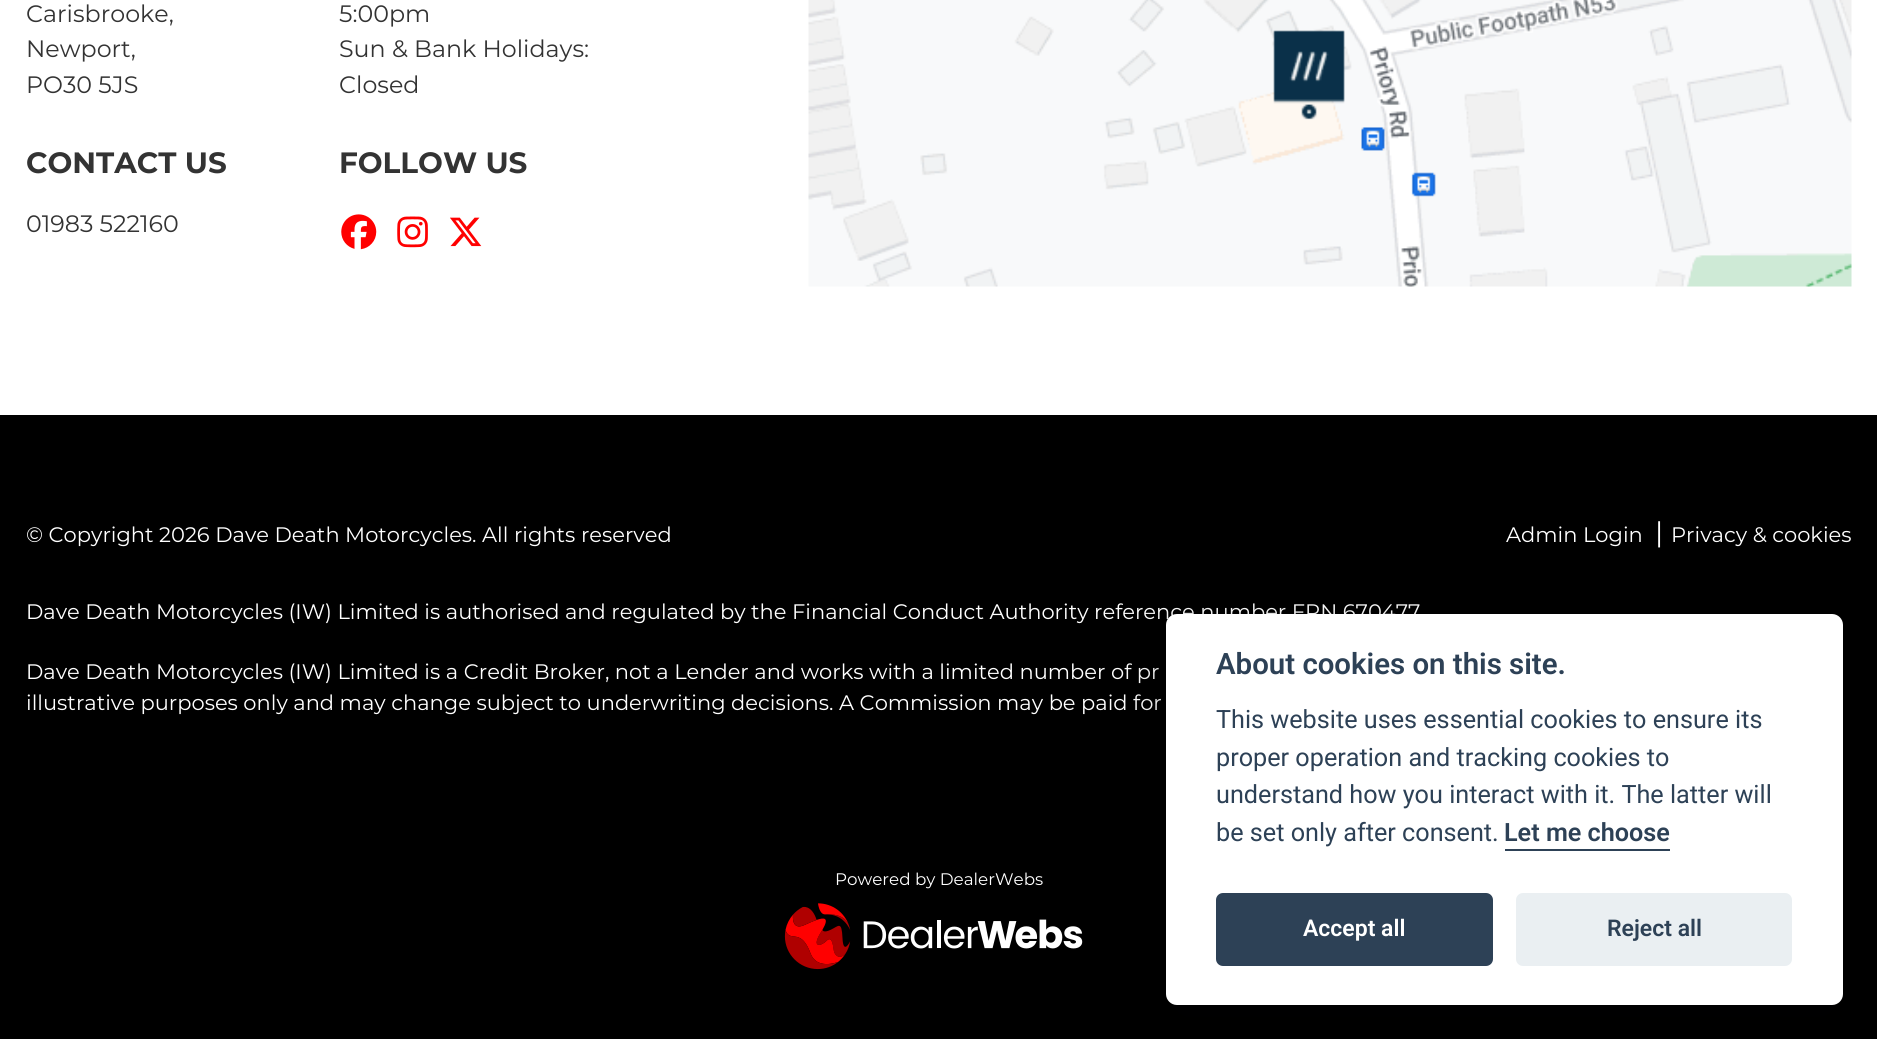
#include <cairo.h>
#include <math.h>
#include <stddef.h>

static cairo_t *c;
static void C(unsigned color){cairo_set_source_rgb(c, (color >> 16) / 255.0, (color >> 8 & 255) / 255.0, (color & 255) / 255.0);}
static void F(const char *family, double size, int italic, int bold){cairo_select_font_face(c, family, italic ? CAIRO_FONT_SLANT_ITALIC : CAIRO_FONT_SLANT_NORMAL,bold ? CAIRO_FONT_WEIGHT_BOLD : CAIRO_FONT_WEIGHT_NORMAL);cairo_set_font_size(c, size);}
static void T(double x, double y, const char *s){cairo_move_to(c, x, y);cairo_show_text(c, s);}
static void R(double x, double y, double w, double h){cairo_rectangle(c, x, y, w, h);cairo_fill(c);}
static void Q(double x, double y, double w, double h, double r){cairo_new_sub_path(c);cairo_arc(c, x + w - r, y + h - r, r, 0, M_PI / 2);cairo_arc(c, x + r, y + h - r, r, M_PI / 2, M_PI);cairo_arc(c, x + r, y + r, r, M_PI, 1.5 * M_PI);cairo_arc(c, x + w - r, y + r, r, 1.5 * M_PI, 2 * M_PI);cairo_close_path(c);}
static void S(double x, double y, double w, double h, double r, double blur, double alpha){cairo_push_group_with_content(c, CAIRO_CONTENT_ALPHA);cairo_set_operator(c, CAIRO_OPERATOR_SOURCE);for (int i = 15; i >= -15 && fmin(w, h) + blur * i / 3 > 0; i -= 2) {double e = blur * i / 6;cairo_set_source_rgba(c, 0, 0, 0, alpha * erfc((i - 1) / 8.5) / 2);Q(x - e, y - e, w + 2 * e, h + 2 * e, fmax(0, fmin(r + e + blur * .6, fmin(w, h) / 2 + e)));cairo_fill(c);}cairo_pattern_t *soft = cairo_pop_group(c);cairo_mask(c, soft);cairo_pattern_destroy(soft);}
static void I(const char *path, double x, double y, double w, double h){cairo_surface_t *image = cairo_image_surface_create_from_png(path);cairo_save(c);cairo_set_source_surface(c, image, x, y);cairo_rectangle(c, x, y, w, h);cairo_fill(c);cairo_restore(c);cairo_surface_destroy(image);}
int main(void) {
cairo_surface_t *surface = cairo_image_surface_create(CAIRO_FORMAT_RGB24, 1877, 1039);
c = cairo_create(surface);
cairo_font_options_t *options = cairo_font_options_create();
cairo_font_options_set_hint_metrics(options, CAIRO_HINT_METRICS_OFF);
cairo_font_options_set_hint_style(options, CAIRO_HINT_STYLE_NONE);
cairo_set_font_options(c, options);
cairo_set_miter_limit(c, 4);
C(0xffffff);
cairo_paint(c);
F("Montserrat",23.75,0,0);
C(0x333333);
T(26,22,"Carisbrooke,");
T(26,57,"Newport,");
T(26,93,"PO30 5JS");
F("Montserrat",29.4,0,1);
T(26,173,"CONTACT US");
F("Montserrat",23.75,0,0);
T(26,232,"01983 522160");
T(339,22,"5:00pm");
T(339,57,"Sun & Bank Holidays:");
T(339,93,"Closed");
F("Montserrat",29.4,0,1);
T(339,173,"FOLLOW US");
I("1.png",341,214,36,36);
I("2.png",397,216,31,32);
I("3.png",450,217,32,30);
I("4.png",808,0,1044,287);
C(0x000000);
R(0,415,1877,624);
F("Montserrat",21,0,0);
C(0xffffff);
T(26,542,"© Copyright 2026 Dave Death Motorcycles. All rights reserved");
T(1506,542,"Admin Login");
F("Montserrat",28,0,0);
T(1655,542,"|");
F("Montserrat",21,0,0);
T(1671,542,"Privacy & cookies");
T(26,619,"Dave Death Motorcycles (IW) Limited is authorised and regulated by the Financial Conduct Authority reference number FRN 670477");
T(26,679,"Dave Death Motorcycles (IW) Limited is a Credit Broker, not a Lender and works with a limited number of pr");
T(26,710,"illustrative purposes only and may change subject to underwriting decisions. A Commission may be paid for");
F("Montserrat",16.75,0,0);
T(835,885,"Powered by DealerWebs");
I("5.png",784,903,299,67);
C(0x020203);
S(1166,632,677,390,11,26,.28);
C(0xffffff);
Q(1166,614,677,391,11);
cairo_fill(c);
F("Roboto SemiBold",29.4,0,0);
C(0x2d4156);
T(1216,674,"About cookies on this site.");
F("Roboto",25.2,0,0);
T(1216,728,"This website uses essential cookies to ensure its");
T(1216,766,"proper operation and tracking cookies to");
T(1216,803,"understand how you interact with it. The latter will");
T(1216,841,"be set only after consent.");
F("Roboto SemiBold",25.2,0,0);
T(1504,841,"Let me choose");
R(1505,849,165,2);
Q(1216,893,277,73,7);
cairo_fill(c);
F("Roboto SemiBold",23,0,0);
C(0xffffff);
T(1303,936,"Accept all");
C(0xeaeff2);
Q(1516,893,276,73,7);
cairo_fill(c);
C(0x2d4156);
T(1607,936,"Reject all");
cairo_surface_write_to_png(surface, "o.png");
cairo_font_options_destroy(options);
cairo_destroy(c);
cairo_surface_destroy(surface);
return 0;
}
